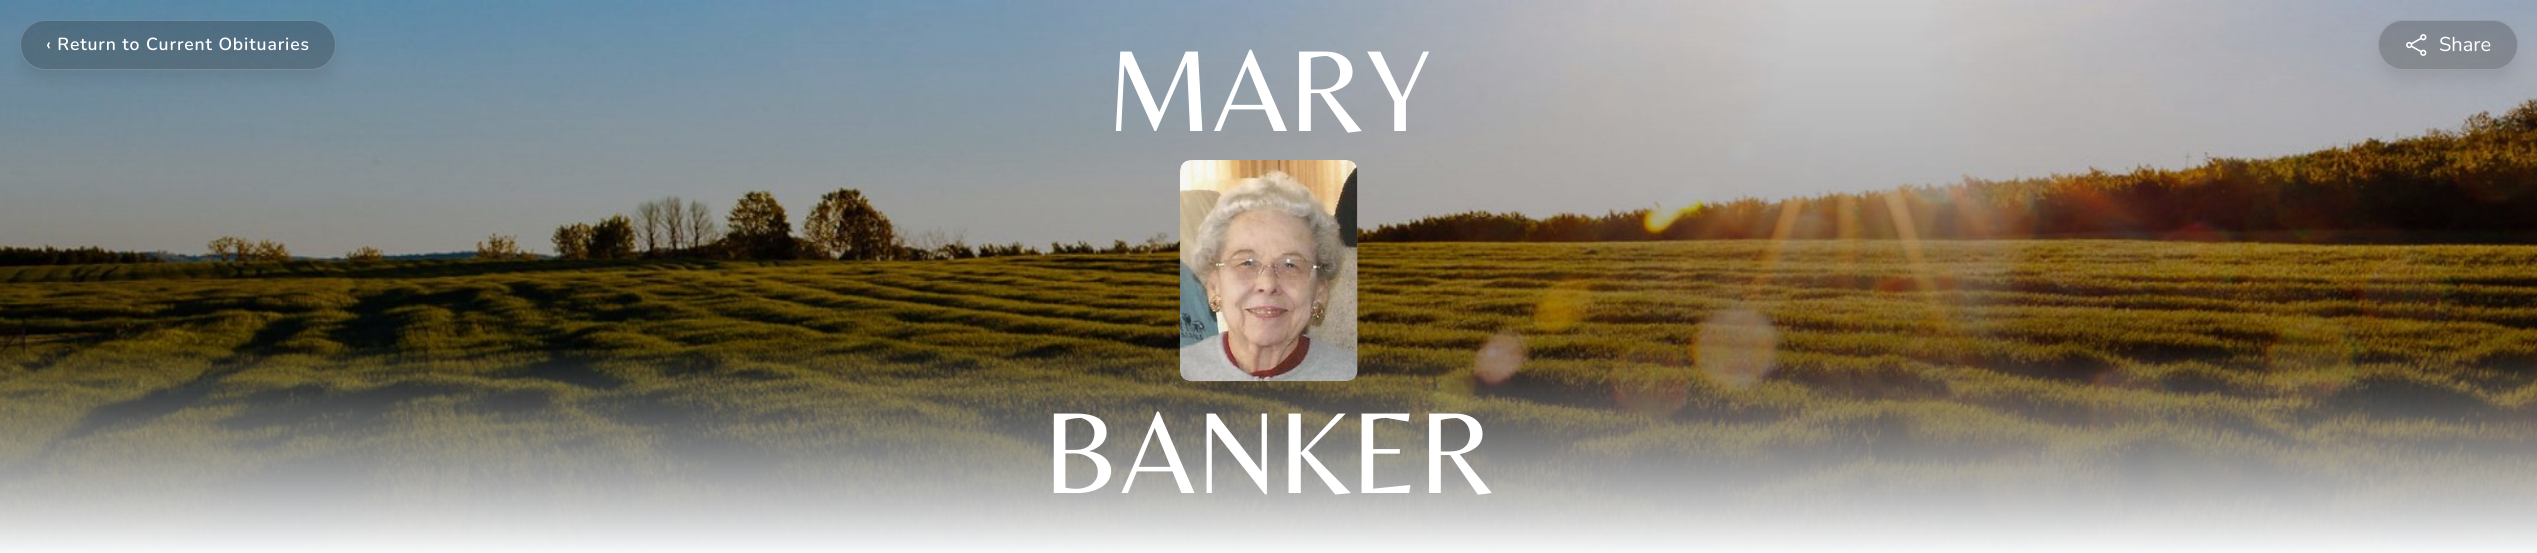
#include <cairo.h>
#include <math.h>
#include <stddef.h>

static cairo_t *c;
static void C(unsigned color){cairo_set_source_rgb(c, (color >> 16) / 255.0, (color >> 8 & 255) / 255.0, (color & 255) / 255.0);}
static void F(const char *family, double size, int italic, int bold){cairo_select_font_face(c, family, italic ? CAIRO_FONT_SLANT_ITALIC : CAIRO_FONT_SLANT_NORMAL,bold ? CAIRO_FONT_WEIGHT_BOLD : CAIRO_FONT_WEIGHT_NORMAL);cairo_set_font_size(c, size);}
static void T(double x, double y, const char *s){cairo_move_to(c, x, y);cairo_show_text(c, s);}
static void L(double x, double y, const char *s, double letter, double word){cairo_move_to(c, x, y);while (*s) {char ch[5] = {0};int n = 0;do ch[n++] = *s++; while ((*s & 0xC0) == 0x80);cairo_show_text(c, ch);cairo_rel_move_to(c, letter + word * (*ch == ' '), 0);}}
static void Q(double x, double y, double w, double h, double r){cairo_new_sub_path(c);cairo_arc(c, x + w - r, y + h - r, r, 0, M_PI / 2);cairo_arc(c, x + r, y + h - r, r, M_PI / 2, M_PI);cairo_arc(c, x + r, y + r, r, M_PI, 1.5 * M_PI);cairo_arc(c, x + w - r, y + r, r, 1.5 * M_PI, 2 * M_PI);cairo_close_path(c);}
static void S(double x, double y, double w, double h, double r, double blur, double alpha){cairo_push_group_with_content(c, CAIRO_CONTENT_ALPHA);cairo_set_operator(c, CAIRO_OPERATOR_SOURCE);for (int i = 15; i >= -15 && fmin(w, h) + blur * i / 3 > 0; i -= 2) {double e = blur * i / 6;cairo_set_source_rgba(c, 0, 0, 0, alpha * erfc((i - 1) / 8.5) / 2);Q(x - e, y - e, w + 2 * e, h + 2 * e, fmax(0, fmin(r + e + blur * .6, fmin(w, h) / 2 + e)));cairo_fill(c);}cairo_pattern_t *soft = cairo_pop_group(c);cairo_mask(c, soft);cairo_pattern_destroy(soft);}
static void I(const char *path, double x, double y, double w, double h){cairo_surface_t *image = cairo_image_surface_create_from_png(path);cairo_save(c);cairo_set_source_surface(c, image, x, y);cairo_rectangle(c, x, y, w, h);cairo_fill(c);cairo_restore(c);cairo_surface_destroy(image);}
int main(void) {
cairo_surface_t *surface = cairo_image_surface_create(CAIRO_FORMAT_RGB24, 2537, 553);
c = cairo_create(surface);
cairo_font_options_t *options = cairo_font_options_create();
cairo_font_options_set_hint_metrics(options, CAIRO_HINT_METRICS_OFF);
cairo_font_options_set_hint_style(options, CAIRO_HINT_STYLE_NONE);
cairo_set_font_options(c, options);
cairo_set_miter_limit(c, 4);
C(0xffffff);
cairo_paint(c);
I("1.png",0,0,2537,553);
cairo_save(c);
cairo_set_fill_rule(c,CAIRO_FILL_RULE_EVEN_ODD);
cairo_new_path(c);
cairo_move_to(c,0,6);
cairo_line_to(c,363,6);
cairo_line_to(c,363,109);
cairo_line_to(c,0,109);
cairo_close_path(c);
cairo_move_to(c,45,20);
cairo_line_to(c,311,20);
cairo_curve_to(c,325,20,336,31,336,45);
cairo_curve_to(c,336,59,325,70,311,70);
cairo_line_to(c,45,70);
cairo_curve_to(c,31,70,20,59,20,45);
cairo_curve_to(c,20,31,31,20,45,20);
cairo_close_path(c);
cairo_clip(c);
C(0x000000);
S(24,36,309,43,21.5,9.5,.1);
cairo_restore(c);
cairo_set_source_rgba(c,0,0,0,0.2);
Q(20,20,316,50,25);
cairo_fill(c);
Q(20.5,20.5,315,49,24.5);
cairo_set_source_rgba(c,1,1,1,0.2);
cairo_set_line_width(c,1);
cairo_stroke(c);
F("Nunito SemiBold",17.5,0,0);
C(0xffffff);
L(46,50,"‹ Return to Current Obituaries",.9,0);
cairo_save(c);
cairo_set_fill_rule(c,CAIRO_FILL_RULE_EVEN_ODD);
cairo_new_path(c);
cairo_move_to(c,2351,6);
cairo_line_to(c,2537,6);
cairo_line_to(c,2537,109);
cairo_line_to(c,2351,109);
cairo_close_path(c);
cairo_move_to(c,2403,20);
cairo_line_to(c,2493,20);
cairo_curve_to(c,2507,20,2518,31,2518,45);
cairo_curve_to(c,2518,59,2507,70,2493,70);
cairo_line_to(c,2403,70);
cairo_curve_to(c,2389,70,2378,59,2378,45);
cairo_curve_to(c,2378,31,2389,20,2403,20);
cairo_close_path(c);
cairo_clip(c);
C(0x000000);
S(2381,36,133,43,21.5,9.5,.1);
cairo_restore(c);
cairo_set_source_rgba(c,0,0,0,0.2);
Q(2378,20,140,50,25);
cairo_fill(c);
Q(2378.5,20.5,139,49,24.5);
cairo_set_source_rgba(c,1,1,1,0.2);
cairo_stroke(c);
I("2.png",2406,34,21,22);
F("Nunito",20,0,0);
C(0xffffff);
T(2439,51,"Share");
F("Belleza",120,0,0);
T(1106,131,"MARY");
cairo_save(c);
Q(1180,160,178,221,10);
cairo_clip(c);
C(0x000000);
S(1180,161,178,222,10,2,.1);
cairo_restore(c);
I("3.png",1180,160,178,222);
I("4.png",1357,169,1,204);
T(1043,493,"BANKER");
cairo_surface_write_to_png(surface, "o.png");
cairo_font_options_destroy(options);
cairo_destroy(c);
cairo_surface_destroy(surface);
return 0;
}
